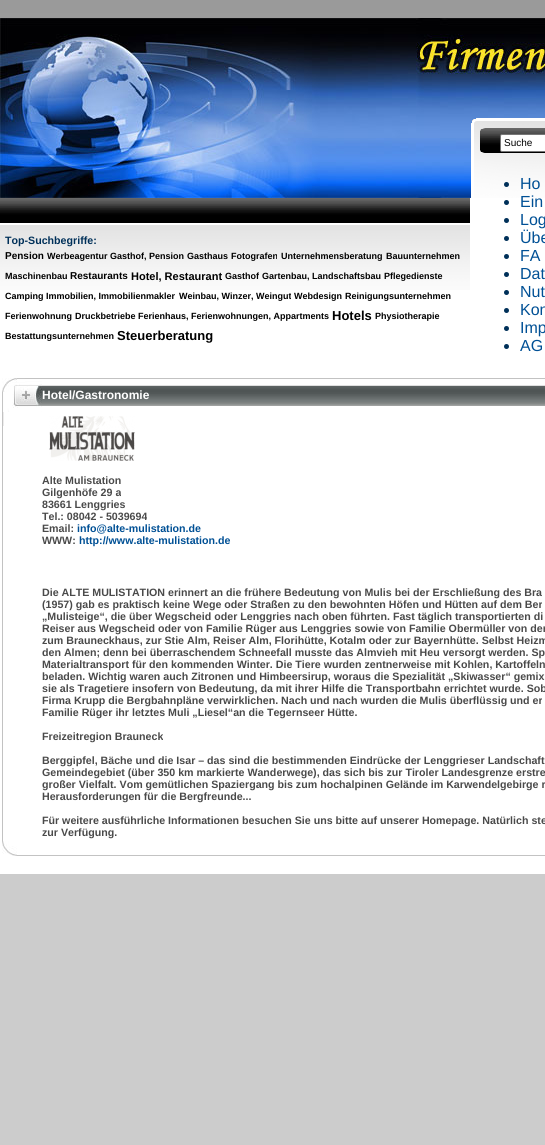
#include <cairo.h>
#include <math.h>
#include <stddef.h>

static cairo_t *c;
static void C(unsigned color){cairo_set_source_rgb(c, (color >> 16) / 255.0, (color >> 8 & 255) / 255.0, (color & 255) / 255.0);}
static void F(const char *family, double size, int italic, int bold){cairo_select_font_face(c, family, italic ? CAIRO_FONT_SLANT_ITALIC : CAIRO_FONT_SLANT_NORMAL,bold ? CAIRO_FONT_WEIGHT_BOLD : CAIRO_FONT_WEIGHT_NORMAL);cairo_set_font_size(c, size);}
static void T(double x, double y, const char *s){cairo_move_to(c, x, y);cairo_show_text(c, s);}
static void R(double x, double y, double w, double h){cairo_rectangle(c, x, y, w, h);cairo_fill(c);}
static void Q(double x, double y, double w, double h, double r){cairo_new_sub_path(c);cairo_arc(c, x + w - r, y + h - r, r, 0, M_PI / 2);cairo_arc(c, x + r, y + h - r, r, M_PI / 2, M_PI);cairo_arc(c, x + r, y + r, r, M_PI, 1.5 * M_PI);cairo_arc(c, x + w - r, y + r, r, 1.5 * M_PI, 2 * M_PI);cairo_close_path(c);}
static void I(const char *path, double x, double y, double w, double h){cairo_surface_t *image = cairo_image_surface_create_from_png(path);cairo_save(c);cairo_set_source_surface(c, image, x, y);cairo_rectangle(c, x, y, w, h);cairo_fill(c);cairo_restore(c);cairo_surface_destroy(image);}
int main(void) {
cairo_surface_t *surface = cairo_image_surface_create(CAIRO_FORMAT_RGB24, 545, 1145);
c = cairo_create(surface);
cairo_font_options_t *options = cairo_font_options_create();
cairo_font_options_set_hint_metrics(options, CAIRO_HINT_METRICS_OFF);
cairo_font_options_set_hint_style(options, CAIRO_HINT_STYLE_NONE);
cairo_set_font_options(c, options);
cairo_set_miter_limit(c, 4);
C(0xcccccc);
cairo_paint(c);
I("1.png",0,0,545,18);
C(0xffffff);
R(0,198,545,676);
I("2.png",0,18,545,180);
I("3.png",0,198,470,25);
I("4.png",0,225,470,65);
F("Liberation Sans",10.65,0,1);
C(0x003059);
T(5,244,"Top-Suchbegriffe:");
F("Liberation Sans",10,0,1);
C(0x000000);
T(5,259,"Pension");
F("Liberation Sans",9,0,1);
T(47,259,"Werbeagentur");
T(110,259,"Gasthof, Pension");
T(187,259,"Gasthaus");
T(231,259,"Fotografen");
T(281,259,"Unternehmensberatung");
T(386,259,"Bauunternehmen");
T(5,279,"Maschinenbau");
F("Liberation Sans",10,0,1);
T(70,279,"Restaurants");
F("Liberation Sans",11,0,1);
T(131,280,"Hotel, Restaurant");
F("Liberation Sans",9,0,1);
T(225,279,"Gasthof");
T(262,279,"Gartenbau, Landschaftsbau");
T(384,279,"Pflegedienste");
T(5,299,"Camping");
T(46,299,"Immobilien, Immobilienmakler");
T(179,299,"Weinbau, Winzer, Weingut");
T(294,299,"Webdesign");
T(345,299,"Reinigungsunternehmen");
T(5,319,"Ferienwohnung");
T(75,319,"Druckbetriebe");
T(138,319,"Ferienhaus, Ferienwohnungen, Appartments");
F("Liberation Sans",13,0,1);
T(332,320,"Hotels");
F("Liberation Sans",9,0,1);
T(375,319,"Physiotherapie");
T(5,339,"Bestattungsunternehmen");
F("Liberation Sans",13,0,1);
T(117,340,"Steuerberatung");
I("5.png",471,118,74,80);
I("6.png",480,128,65,25);
C(0xffffff);
Q(500.5,134.5,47,17,1.5);
cairo_fill_preserve(c);
C(0x767676);
cairo_set_line_width(c,1);
cairo_stroke(c);
F("Liberation Sans",10,0,0);
C(0x000000);
T(504,146,"Suche");
C(0x003059);
cairo_new_path(c);
cairo_arc(c,506.5,184.5,2.5,0,2 * M_PI);
cairo_fill(c);
F("Liberation Sans",16,0,0);
C(0x005095);
T(520,189,"Ho");
C(0x003059);
cairo_new_path(c);
cairo_arc(c,506.5,202.5,2.5,0,2 * M_PI);
cairo_fill(c);
C(0x005095);
T(520,207,"Ein");
C(0x003059);
cairo_new_path(c);
cairo_arc(c,506.5,220.5,2.5,0,2 * M_PI);
cairo_fill(c);
C(0x005095);
T(520,225,"Log");
C(0x003059);
cairo_new_path(c);
cairo_arc(c,506.5,238.5,2.5,0,2 * M_PI);
cairo_fill(c);
C(0x005095);
T(520,243,"Übe");
C(0x003059);
cairo_new_path(c);
cairo_arc(c,506.5,256.5,2.5,0,2 * M_PI);
cairo_fill(c);
C(0x005095);
T(520,261,"FA");
C(0x003059);
cairo_new_path(c);
cairo_arc(c,506.5,274.5,2.5,0,2 * M_PI);
cairo_fill(c);
C(0x005095);
T(520,279,"Dat");
C(0x003059);
cairo_new_path(c);
cairo_arc(c,506.5,292.5,2.5,0,2 * M_PI);
cairo_fill(c);
C(0x005095);
T(520,297,"Nut");
C(0x003059);
cairo_new_path(c);
cairo_arc(c,506.5,310.5,2.5,0,2 * M_PI);
cairo_fill(c);
C(0x005095);
T(520,315,"Kon");
C(0x003059);
cairo_new_path(c);
cairo_arc(c,506.5,328.5,2.5,0,2 * M_PI);
cairo_fill(c);
C(0x005095);
T(520,333,"Imp");
C(0x003059);
cairo_new_path(c);
cairo_arc(c,506.5,346.5,2.5,0,2 * M_PI);
cairo_fill(c);
C(0x005095);
T(520,351,"AG");
I("7.png",42,378,503,28);
I("8.png",2,378,40,34);
F("Liberation Sans",12,0,1);
C(0xffffff);
T(42,399,"Hotel/Gastronomie");
C(0xedecec);
R(3,412,1,14);
C(0xc2c2c2);
R(2,412,1,429);
I("9.png",49,416,86,45);
F("Liberation Sans",10.65,0,1);
C(0x4a4a4a);
T(42,484,"Alte Mulistation");
T(42,496,"Gilgenhöfe 29 a");
T(42,508,"83661 Lenggries");
T(42,520,"Tel.: 08042 - 5039694");
T(42,532,"Email:");
C(0x005095);
T(77,532,"info@alte-mulistation.de");
C(0x4a4a4a);
T(42,544,"WWW:");
C(0x005095);
T(79,544,"http://www.alte-mulistation.de");
C(0x4a4a4a);
T(42,596,"Die ALTE MULISTATION erinnert an die frühere Bedeutung von Mulis bei der Erschließung des Bra");
T(42,608,"(1957) gab es praktisch keine Wege oder Straßen zu den bewohnten Höfen und Hütten auf dem Ber");
T(42,620,"„Mulisteige“, die über Wegscheid oder Lenggries nach oben führten. Fast täglich transportierten di");
T(42,632,"Reiser aus Wegscheid oder von Familie Rüger aus Lenggries sowie von Familie Obermüller von der");
T(42,644,"zum Brauneckhaus, zur Stie Alm, Reiser Alm, Florihütte, Kotalm oder zur Bayernhütte. Selbst Heizm");
T(42,656,"den Almen; denn bei überraschendem Schneefall musste das Almvieh mit Heu versorgt werden. Sp");
T(42,668,"Materialtransport für den kommenden Winter. Die Tiere wurden zentnerweise mit Kohlen, Kartoffeln");
T(42,680,"beladen. Wichtig waren auch Zitronen und Himbeersirup, woraus die Spezialität „Skiwasser“ gemix");
T(42,692,"sie als Tragetiere insofern von Bedeutung, da mit ihrer Hilfe die Transportbahn errichtet wurde. Sob");
T(42,704,"Firma Krupp die Bergbahnpläne verwirklichen. Nach und nach wurden die Mulis überflüssig und er");
T(42,716,"Familie Rüger ihr letztes Muli „Liesel“an die Tegernseer Hütte.");
T(42,740,"Freizeitregion Brauneck");
T(42,764,"Berggipfel, Bäche und die Isar – das sind die bestimmenden Eindrücke der Lenggrieser Landschaft");
T(42,776,"Gemeindegebiet (über 350 km markierte Wanderwege), das sich bis zur Tiroler Landesgrenze erstre");
T(42,788,"großer Vielfalt. Vom gemütlichen Spaziergang bis zum hochalpinen Gelände im Karwendelgebirge r");
T(42,800,"Herausforderungen für die Bergfreunde...");
T(42,824,"Für weitere ausführliche Informationen besuchen Sie uns bitte auf unserer Homepage. Natürlich ste");
T(42,836,"zur Verfügung.");
C(0xc3c3c3);
R(17,855,528,1);
I("10.png",2,841,15,15);
cairo_surface_write_to_png(surface, "o.png");
cairo_font_options_destroy(options);
cairo_destroy(c);
cairo_surface_destroy(surface);
return 0;
}
